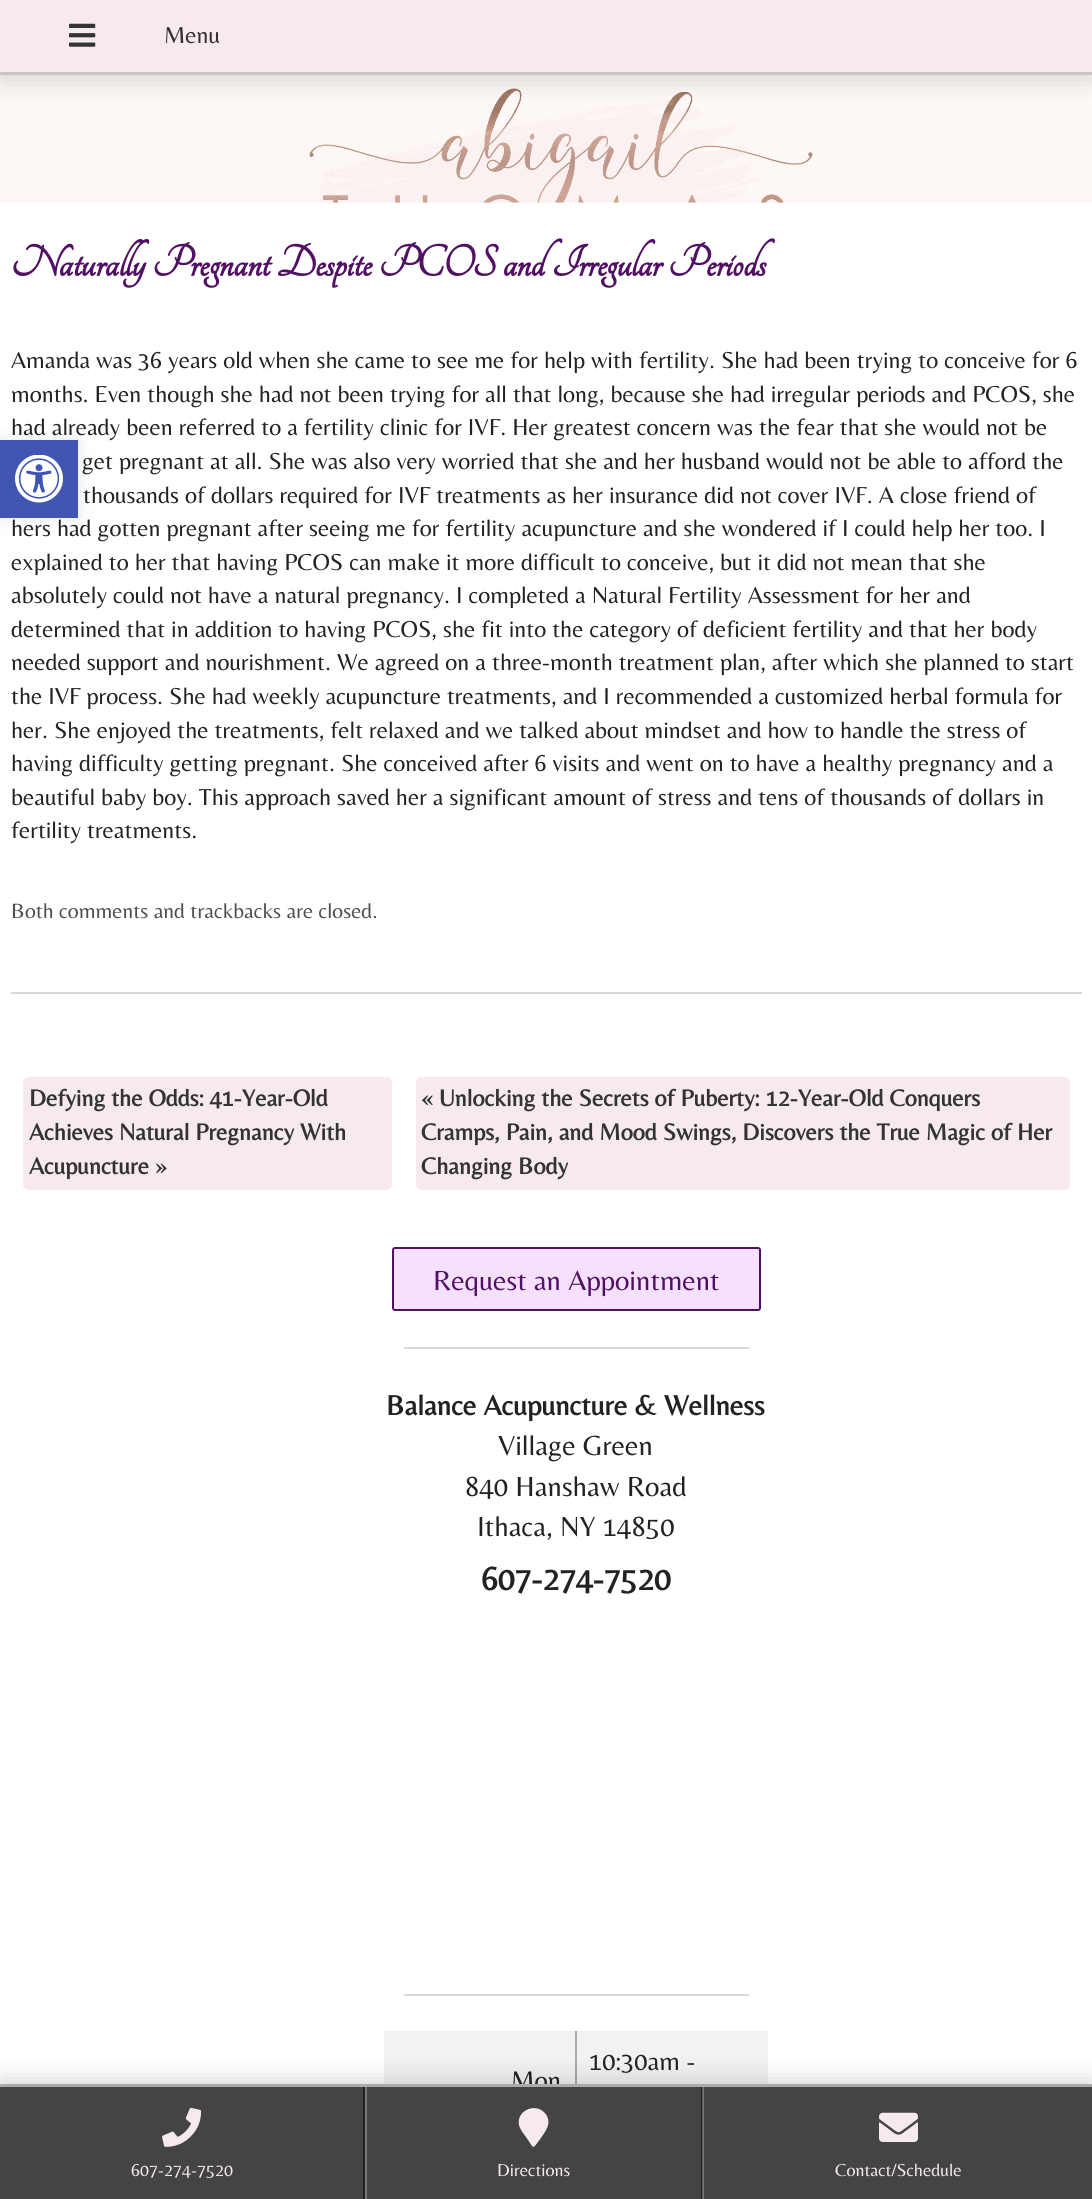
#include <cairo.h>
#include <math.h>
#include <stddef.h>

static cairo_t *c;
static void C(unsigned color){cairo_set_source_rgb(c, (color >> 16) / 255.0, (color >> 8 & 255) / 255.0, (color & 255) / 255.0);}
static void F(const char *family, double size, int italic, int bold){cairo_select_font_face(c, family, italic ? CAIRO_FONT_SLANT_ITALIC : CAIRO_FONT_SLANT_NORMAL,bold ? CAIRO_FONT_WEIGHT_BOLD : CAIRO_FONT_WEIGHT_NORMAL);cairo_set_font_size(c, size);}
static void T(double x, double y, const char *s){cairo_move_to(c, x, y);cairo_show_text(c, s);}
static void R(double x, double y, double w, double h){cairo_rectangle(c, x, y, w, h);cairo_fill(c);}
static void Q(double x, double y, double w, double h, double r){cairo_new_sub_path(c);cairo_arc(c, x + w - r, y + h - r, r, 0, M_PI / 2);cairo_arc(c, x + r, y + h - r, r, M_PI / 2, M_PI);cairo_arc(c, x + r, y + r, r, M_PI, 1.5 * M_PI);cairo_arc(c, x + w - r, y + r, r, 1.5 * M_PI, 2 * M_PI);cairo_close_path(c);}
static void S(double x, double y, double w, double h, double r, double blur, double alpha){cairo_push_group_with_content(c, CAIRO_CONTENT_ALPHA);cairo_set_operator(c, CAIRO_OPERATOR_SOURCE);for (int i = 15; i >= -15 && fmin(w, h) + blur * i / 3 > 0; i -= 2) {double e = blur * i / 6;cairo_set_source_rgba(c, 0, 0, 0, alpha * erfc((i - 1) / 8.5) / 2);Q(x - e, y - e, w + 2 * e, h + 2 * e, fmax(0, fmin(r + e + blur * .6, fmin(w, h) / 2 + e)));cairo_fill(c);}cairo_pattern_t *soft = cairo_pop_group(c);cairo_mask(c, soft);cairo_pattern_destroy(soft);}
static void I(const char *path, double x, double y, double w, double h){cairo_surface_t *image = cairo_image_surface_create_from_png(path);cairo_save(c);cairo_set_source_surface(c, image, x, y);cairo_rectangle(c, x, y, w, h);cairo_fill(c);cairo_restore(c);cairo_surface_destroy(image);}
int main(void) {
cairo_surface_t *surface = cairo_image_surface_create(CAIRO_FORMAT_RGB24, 1092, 2199);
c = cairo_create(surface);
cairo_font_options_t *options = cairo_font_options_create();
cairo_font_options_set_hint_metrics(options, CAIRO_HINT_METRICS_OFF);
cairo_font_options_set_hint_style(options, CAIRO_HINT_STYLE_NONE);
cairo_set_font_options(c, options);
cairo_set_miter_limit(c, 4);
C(0xffffff);
cairo_paint(c);
C(0xfdf8f6);
R(0,75,1092,128);
I("2.png",309,88,504,115);
C(0x000000);
S(0,5,1092,75,0,12,.15);
C(0xf6eaef);
R(0,0,1092,72);
C(0xc6c6c6);
R(0,72,1092,3);
I("1.png",69,23,27,24);
F("Belleza",24,0,0);
C(0x333333);
T(164,43,"Menu");
C(0xd9d9d9);
R(11,992,1071,2);
F("Tangerine",48,0,1);
C(0x511064);
T(11,276,"Naturally Pregnant Despite PCOS and Irregular Periods");
F("Belleza",24,0,0);
C(0x222222);
T(11,368,"Amanda was 36 years old when she came to see me for help with fertility. She had been trying to conceive for 6");
T(11,402,"months. Even though she had not been trying for all that long, because she had irregular periods and PCOS, she");
T(11,435,"had already been referred to a fertility clinic for IVF. Her greatest concern was the fear that she would not be");
T(82,469,"get pregnant at all. She was also very worried that she and her husband would not be able to afford the");
T(83,503,"thousands of dollars required for IVF treatments as her insurance did not cover IVF. A close friend of");
T(11,536,"hers had gotten pregnant after seeing me for fertility acupuncture and she wondered if I could help her too. I");
T(11,570,"explained to her that having PCOS can make it more difficult to conceive, but it did not mean that she");
T(11,603,"absolutely could not have a natural pregnancy. I completed a Natural Fertility Assessment for her and");
T(11,637,"determined that in addition to having PCOS, she fit into the category of deficient fertility and that her body");
T(11,670,"needed support and nourishment. We agreed on a three-month treatment plan, after which she planned to start");
T(11,704,"the IVF process. She had weekly acupuncture treatments, and I recommended a customized herbal formula for");
T(11,738,"her. She enjoyed the treatments, felt relaxed and we talked about mindset and how to handle the stress of");
T(11,771,"having difficulty getting pregnant. She conceived after 6 visits and went on to have a healthy pregnancy and a");
T(11,805,"beautiful baby boy. This approach saved her a significant amount of stress and tens of thousands of dollars in");
T(11,838,"fertility treatments.");
F("Belleza",21.6,0,0);
C(0x4e4e4e);
T(11,918,"Both comments and trackbacks are closed.");
C(0xf6eaef);
Q(23,1077,369,113,6);
cairo_fill(c);
F("Belleza",24,0,1);
C(0x333333);
T(29,1106,"Defying the Odds: 41-Year-Old");
T(29,1140,"Achieves Natural Pregnancy With");
T(29,1174,"Acupuncture »");
C(0xf6eaef);
Q(416,1077,654,113,6);
cairo_fill(c);
C(0x333333);
T(421,1106,"« Unlocking the Secrets of Puberty: 12-Year-Old Conquers");
T(421,1140,"Cramps, Pain, and Mood Swings, Discovers the True Magic of Her");
T(421,1174,"Changing Body");
C(0xf5e1ff);
Q(393,1248,367,62,2);
cairo_fill_preserve(c);
C(0x511064);
cairo_stroke(c);
F("Belleza",28.75,0,0);
T(433,1290,"Request an Appointment");
C(0xd9d9d9);
R(404,1347,345,2);
F("Belleza",28.75,0,1);
C(0x222222);
T(386,1415,"Balance Acupuncture & Wellness");
F("Belleza",28.75,0,0);
T(498,1455,"Village Green");
T(465,1496,"840 Hanshaw Road");
T(477,1536,"Ithaca, NY 14850");
F("Belleza",33.5,0,1);
T(481,1590,"607-274-7520");
C(0xd9d9d9);
R(404,1994,345,2);
C(0xf2f2f2);
R(384,2031,384,53);
F("Belleza",26.5,0,0);
C(0x222222);
T(589,2070,"10:30am -");
C(0xaaaaaa);
R(575,2031,2,53);
C(0x222222);
T(511,2089,"Mon");
C(0x000000);
S(0,440,78,78,0,7.5,.1);
C(0x4054b2);
R(0,440,78,78);
I("3.png",15,455,48,48);
C(0x000000);
S(0,2079,1092,116,0,12,.15);
C(0x444444);
R(0,2087,1092,112);
C(0xaaaaaa);
R(0,2084,1092,3);
C(0x222222);
R(363,2087,2,112);
I("4.png",162,2107,40,40);
F("Belleza",18,0,0);
C(0xf6eaef);
T(131,2176,"607-274-7520");
C(0x222222);
R(701,2087,2,112);
C(0x767676);
R(365,2087,2,112);
C(0xf6eaef);
cairo_new_path(c);
cairo_move_to(c,532,2146);
cairo_line_to(c,526,2137);
cairo_curve_to(c,523.5,2133.5,520,2129.5,519,2125);
cairo_curve_to(c,516,2110,537,2101.5,546,2114.5);
cairo_curve_to(c,552.5,2124,544.5,2132.5,539.5,2140);
cairo_line_to(c,534.5,2146.5);
cairo_curve_to(c,533.5,2147,532.5,2147,532,2146);
cairo_close_path(c);
cairo_fill(c);
T(497,2176,"Directions");
cairo_set_source_rgba(c,1,1,1,0.27);
R(702,2087,2,112);
I("5.png",879,2112,39,30);
C(0xf6eaef);
T(835,2176,"Contact/Schedule");
cairo_surface_write_to_png(surface, "o.png");
cairo_font_options_destroy(options);
cairo_destroy(c);
cairo_surface_destroy(surface);
return 0;
}
